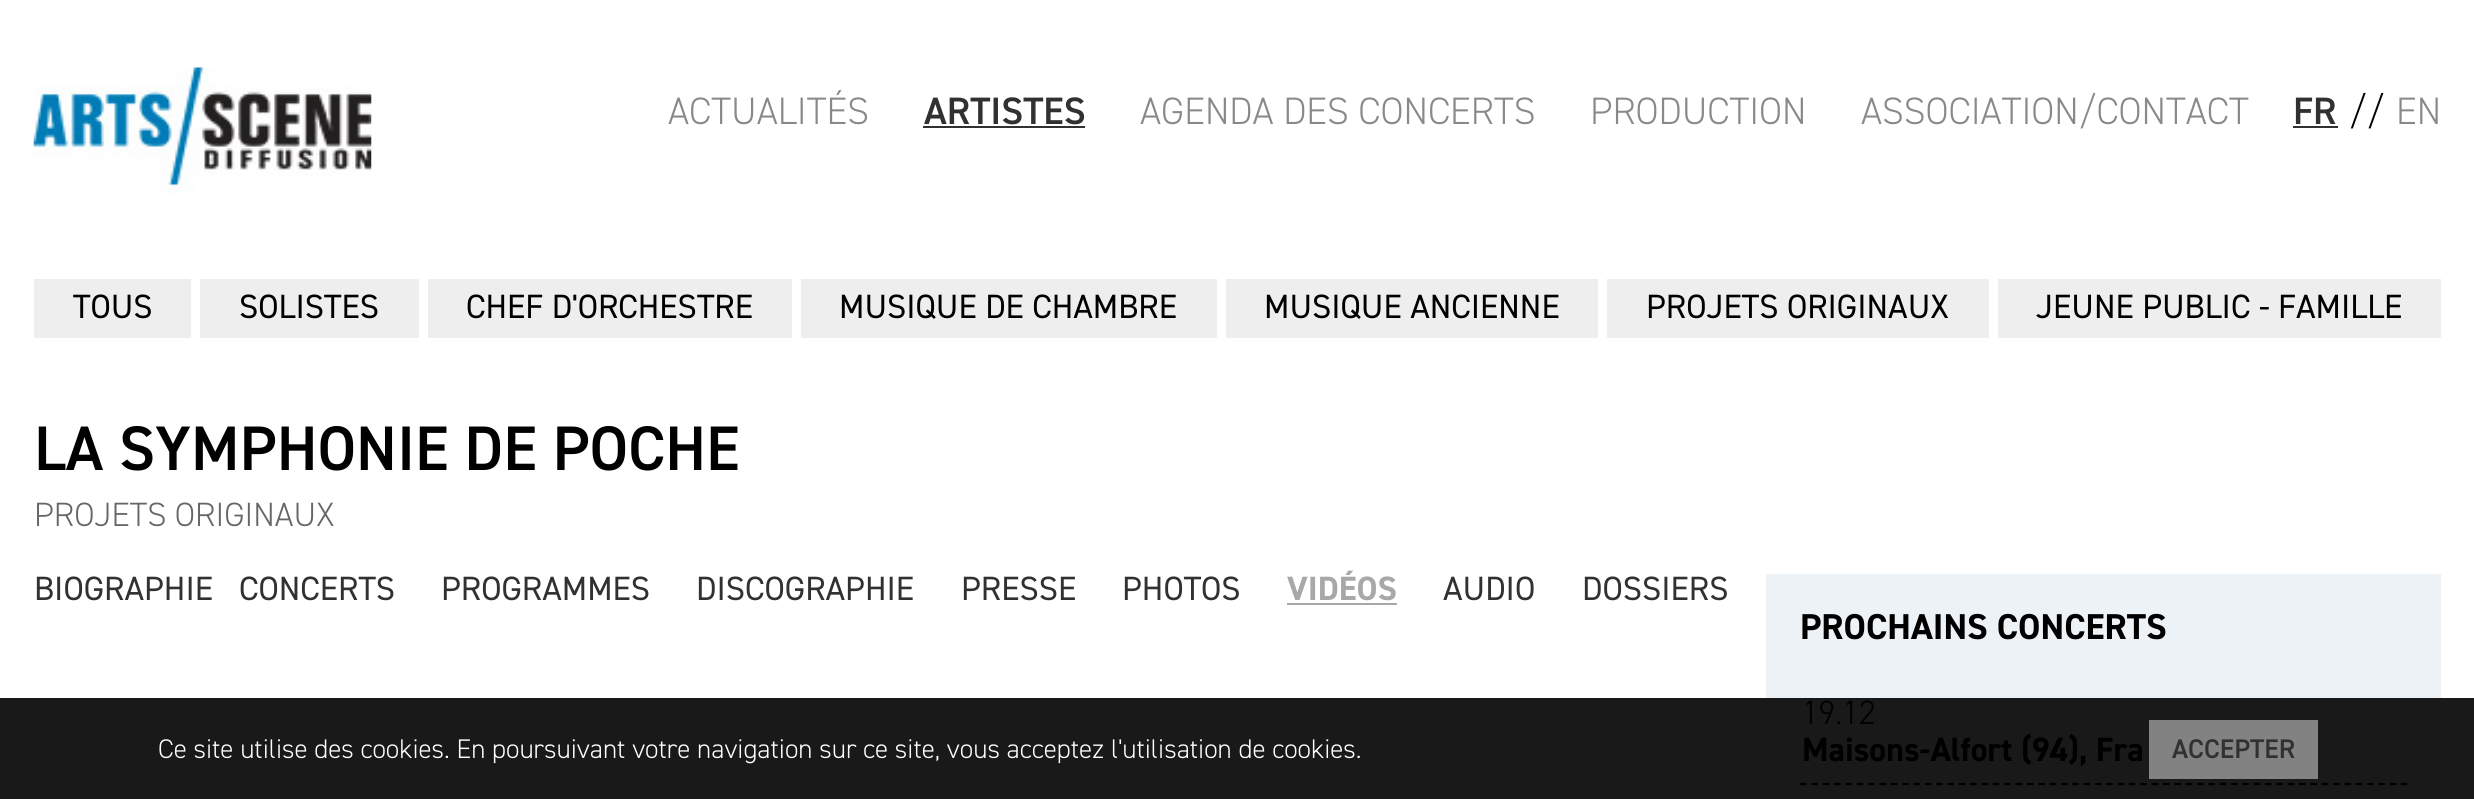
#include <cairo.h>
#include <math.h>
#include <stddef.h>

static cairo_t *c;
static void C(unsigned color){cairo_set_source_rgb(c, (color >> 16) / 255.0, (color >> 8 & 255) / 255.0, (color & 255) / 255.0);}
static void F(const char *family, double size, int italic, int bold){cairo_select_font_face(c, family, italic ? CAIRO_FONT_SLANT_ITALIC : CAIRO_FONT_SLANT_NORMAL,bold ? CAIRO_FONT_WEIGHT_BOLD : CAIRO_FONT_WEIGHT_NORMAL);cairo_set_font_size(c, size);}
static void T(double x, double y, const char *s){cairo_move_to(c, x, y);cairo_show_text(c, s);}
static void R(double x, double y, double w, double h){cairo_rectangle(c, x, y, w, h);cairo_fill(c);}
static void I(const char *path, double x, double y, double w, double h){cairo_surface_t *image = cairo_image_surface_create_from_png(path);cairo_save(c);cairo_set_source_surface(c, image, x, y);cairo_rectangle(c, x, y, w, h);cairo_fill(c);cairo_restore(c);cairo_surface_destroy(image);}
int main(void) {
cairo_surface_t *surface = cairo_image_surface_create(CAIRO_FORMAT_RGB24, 2474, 799);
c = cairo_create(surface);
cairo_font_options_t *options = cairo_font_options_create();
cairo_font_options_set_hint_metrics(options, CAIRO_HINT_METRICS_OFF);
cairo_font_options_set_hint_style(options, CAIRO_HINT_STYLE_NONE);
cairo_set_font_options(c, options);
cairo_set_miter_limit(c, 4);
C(0xffffff);
cairo_paint(c);
C(0x191919);
R(0,698,2474,101);
I("1.png",33,67,339,126);
F("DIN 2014 Light",38.25,0,0);
C(0x898989);
T(668,124,"ACTUALITÉS");
F("DIN 2014 SemiBold",38.25,0,0);
C(0x313131);
T(924,124,"ARTISTES");
R(923,126,162,2);
F("DIN 2014 Light",38.25,0,0);
C(0x898989);
T(1140,124,"AGENDA DES CONCERTS");
T(1590,124,"PRODUCTION");
T(1861,124,"ASSOCIATION/CONTACT");
F("DIN 2014 SemiBold",38.25,0,0);
C(0x313131);
T(2293,124,"FR");
R(2293,126,45,2);
F("DIN 2014 Light",38.25,0,0);
C(0x000000);
T(2349,124,"//");
C(0x898989);
T(2396,124,"EN");
C(0xeeeeee);
R(34,279,157,59);
F("DIN 2014",33.75,0,0);
C(0x000000);
T(73,318,"TOUS");
C(0xeeeeee);
R(200,279,219,59);
C(0x000000);
T(239,318,"SOLISTES");
C(0xeeeeee);
R(428,279,364,59);
C(0x000000);
T(466,318,"CHEF D'ORCHESTRE");
C(0xeeeeee);
R(801,279,416,59);
C(0x000000);
T(839,318,"MUSIQUE DE CHAMBRE");
C(0xeeeeee);
R(1226,279,372,59);
C(0x000000);
T(1264,318,"MUSIQUE ANCIENNE");
C(0xeeeeee);
R(1607,279,382,59);
C(0x000000);
T(1646,318,"PROJETS ORIGINAUX");
C(0xeeeeee);
R(1998,279,443,59);
C(0x000000);
T(2036,318,"JEUNE PUBLIC - FAMILLE");
F("DIN 2014 SemiBold",63,0,0);
T(34,470,"LA SYMPHONIE DE POCHE");
F("DIN 2014 Light",33.75,0,0);
C(0x666666);
T(34,526,"PROJETS ORIGINAUX");
F("DIN 2014",33.75,0,0);
C(0x313131);
T(34,600,"BIOGRAPHIE");
T(239,600,"CONCERTS");
T(441,600,"PROGRAMMES");
T(696,600,"DISCOGRAPHIE");
T(961,600,"PRESSE");
T(1122,600,"PHOTOS");
F("DIN 2014",33.75,0,1);
C(0xa8a8a8);
T(1287,600,"VIDÉOS");
R(1287,603,110,2);
F("DIN 2014",33.75,0,0);
C(0x313131);
T(1443,600,"AUDIO");
T(1582,600,"DOSSIERS");
C(0xecf2f6);
R(1766,574,675,124);
F("DIN 2014",36,0,1);
C(0x000000);
T(1800,639,"PROCHAINS CONCERTS");
cairo_new_path(c);
cairo_move_to(c,1800,784);
cairo_line_to(c,2407.5,784);
cairo_set_line_width(c,2.2);
cairo_set_dash(c,(double[]){6.75,4.59},2,0);
cairo_stroke(c);
F("DIN 2014 Light",33.75,0,0);
T(1802,724,"19.12");
F("DIN 2014",33.75,0,1);
T(1802,761,"Maisons-Alfort (94), Fra");
F("DIN 2014 Light",27,0,0);
C(0xffffff);
T(158,758,"Ce site utilise des cookies. En poursuivant votre navigation sur ce site, vous acceptez l'utilisation de cookies.");
C(0x818281);
R(2149,720,169,59);
F("DIN 2014 SemiBold",27,0,0);
C(0x313131);
T(2172,758,"ACCEPTER");
cairo_surface_write_to_png(surface, "o.png");
cairo_font_options_destroy(options);
cairo_destroy(c);
cairo_surface_destroy(surface);
return 0;
}
